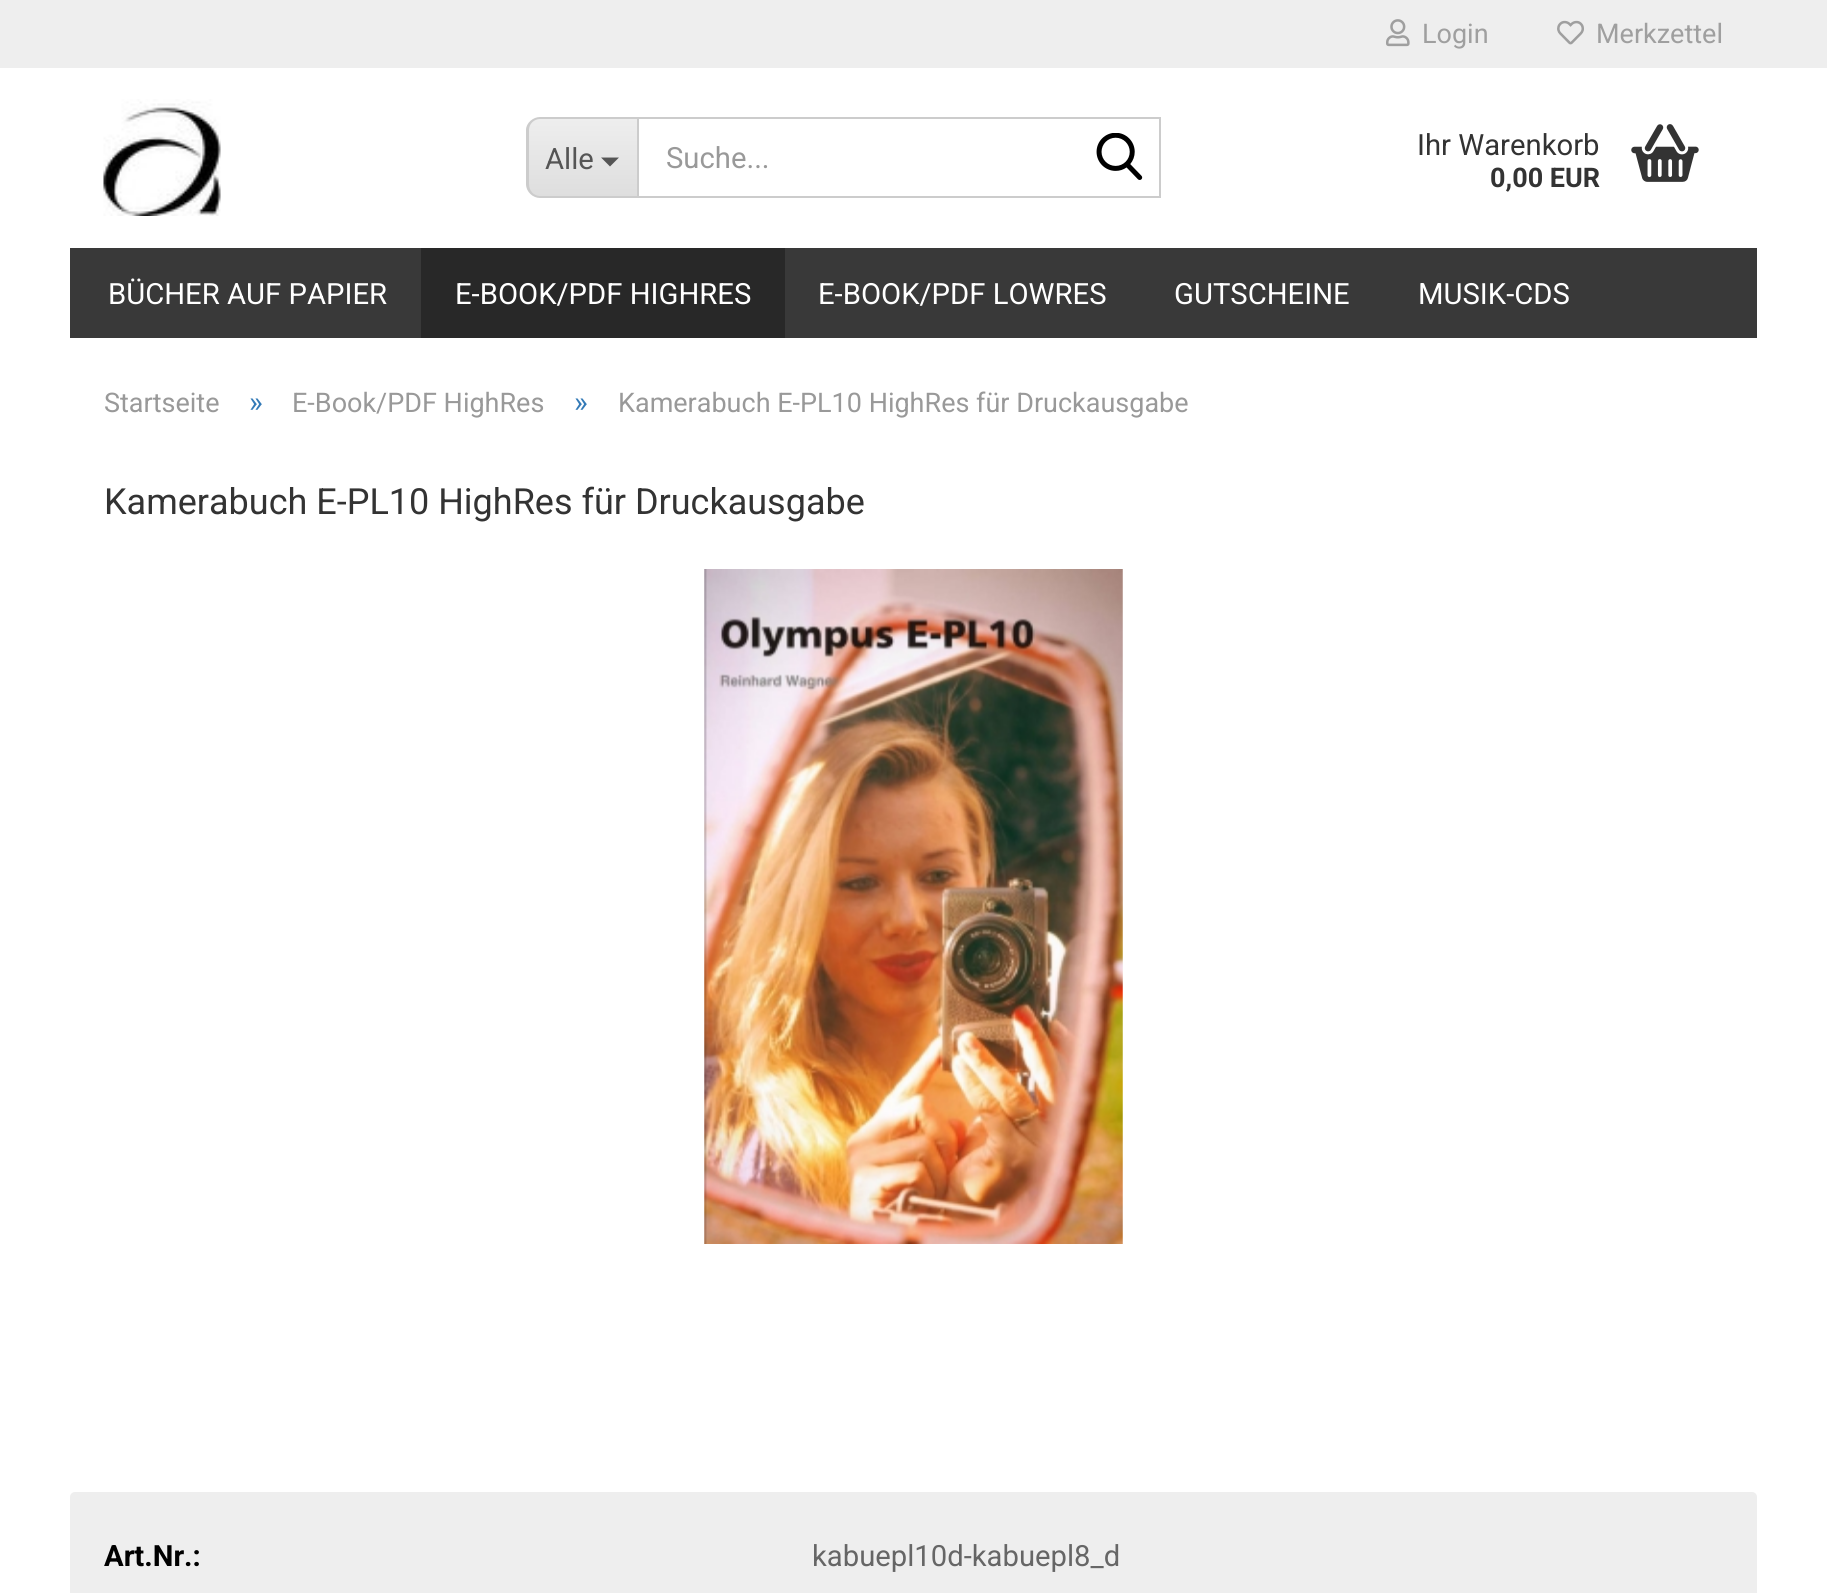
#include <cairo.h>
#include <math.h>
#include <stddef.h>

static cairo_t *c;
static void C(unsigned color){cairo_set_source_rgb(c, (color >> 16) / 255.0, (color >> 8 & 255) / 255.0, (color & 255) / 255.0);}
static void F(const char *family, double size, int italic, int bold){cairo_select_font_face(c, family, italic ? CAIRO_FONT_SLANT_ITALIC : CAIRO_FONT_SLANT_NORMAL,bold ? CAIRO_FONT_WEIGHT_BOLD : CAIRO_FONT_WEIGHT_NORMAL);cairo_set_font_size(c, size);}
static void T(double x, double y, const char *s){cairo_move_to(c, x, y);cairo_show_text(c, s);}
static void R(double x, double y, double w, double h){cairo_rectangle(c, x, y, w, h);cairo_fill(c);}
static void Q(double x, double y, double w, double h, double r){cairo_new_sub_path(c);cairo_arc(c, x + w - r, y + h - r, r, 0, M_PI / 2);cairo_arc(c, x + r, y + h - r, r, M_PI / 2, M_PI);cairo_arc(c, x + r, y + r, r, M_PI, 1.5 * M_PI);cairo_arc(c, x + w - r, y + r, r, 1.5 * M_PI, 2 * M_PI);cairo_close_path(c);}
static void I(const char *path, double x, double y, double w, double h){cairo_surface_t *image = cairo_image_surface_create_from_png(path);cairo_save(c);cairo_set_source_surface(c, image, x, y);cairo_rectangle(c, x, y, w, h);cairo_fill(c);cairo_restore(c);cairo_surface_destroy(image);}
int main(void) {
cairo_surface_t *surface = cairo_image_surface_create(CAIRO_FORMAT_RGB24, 1827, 1593);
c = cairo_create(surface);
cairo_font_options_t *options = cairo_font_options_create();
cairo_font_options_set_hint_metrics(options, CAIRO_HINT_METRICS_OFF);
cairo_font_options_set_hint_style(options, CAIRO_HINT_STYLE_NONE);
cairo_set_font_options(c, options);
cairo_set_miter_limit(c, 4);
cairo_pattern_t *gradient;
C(0xffffff);
cairo_paint(c);
C(0xeeeeee);
R(0,0,1827,68);
I("1.png",1386,19,24,28);
F("Roboto",27,0,0);
C(0x9f9f9f);
T(1422,43,"Login");
I("2.png",1557,20,27,25);
T(1596,43,"Merkzettel");
I("3.png",103,99,118,117);
cairo_save(c);
cairo_new_path(c);
cairo_move_to(c,541,117);
cairo_line_to(c,637,117);
cairo_line_to(c,637,198);
cairo_line_to(c,541,198);
cairo_curve_to(c,533.5,198,527,191.5,527,184);
cairo_line_to(c,527,131);
cairo_curve_to(c,527,123.5,533.5,117,541,117);
cairo_close_path(c);
cairo_clip(c);
gradient = cairo_pattern_create_linear(583,119,583,196);
cairo_pattern_add_color_stop_rgba(gradient,0,0.933,0.933,0.933,1);
cairo_pattern_add_color_stop_rgba(gradient,1,0.871,0.871,0.871,1);
cairo_set_source(c,gradient);
cairo_pattern_destroy(gradient);
R(529,119,108,77);
cairo_restore(c);
C(0xcccccc);
cairo_set_fill_rule(c,CAIRO_FILL_RULE_EVEN_ODD);
cairo_new_path(c);
cairo_move_to(c,540,117);
cairo_line_to(c,637,117);
cairo_line_to(c,637,198);
cairo_line_to(c,540,198);
cairo_curve_to(c,533,198,526,192,526,184);
cairo_line_to(c,526,130);
cairo_curve_to(c,526,123,533,117,540,117);
cairo_close_path(c);
cairo_move_to(c,540,119);
cairo_line_to(c,637,119);
cairo_line_to(c,637,196);
cairo_line_to(c,540,196);
cairo_curve_to(c,534,196,529,191,529,184);
cairo_line_to(c,529,130);
cairo_curve_to(c,529,124,534,119,540,119);
cairo_close_path(c);
cairo_fill(c);
F("Roboto",29.25,0,0);
C(0x555555);
T(545,169,"Alle");
cairo_set_fill_rule(c,CAIRO_FILL_RULE_WINDING);
cairo_new_path(c);
cairo_move_to(c,601,157.5);
cairo_line_to(c,619,157.5);
cairo_line_to(c,610,166.5);
cairo_close_path(c);
cairo_fill(c);
cairo_rectangle(c,638,118,522,79);
C(0xcccccc);
cairo_stroke(c);
C(0x999999);
T(666,168,"Suche...");
I("4.png",1096,133,47,47);
C(0x333333);
T(1417,155,"Ihr Warenkorb");
F("Roboto",27,0,1);
T(1490,187,"0,00 EUR");
I("5.png",1631,124,68,58);
C(0x393939);
R(70,248,1687,90);
F("Roboto",29.25,0,0);
C(0xffffff);
T(108,304,"BÜCHER AUF PAPIER");
C(0x282828);
R(421,248,364,90);
C(0xffffff);
T(455,304,"E-BOOK/PDF HIGHRES");
T(818,304,"E-BOOK/PDF LOWRES");
T(1174,304,"GUTSCHEINE");
T(1418,304,"MUSIK-CDS");
F("Roboto",27,0,0);
C(0x999999);
T(104,412,"Startseite");
F("Roboto",29.25,0,0);
C(0x337ab7);
T(249,412,"»");
F("Roboto",27,0,0);
C(0x999999);
T(292,412,"E-Book/PDF HighRes");
F("Roboto",29.25,0,0);
C(0x337ab7);
T(574,412,"»");
F("Roboto",27,0,0);
C(0x999999);
T(618,412,"Kamerabuch E-PL10 HighRes für Druckausgabe");
F("Roboto",36,0,0);
C(0x333333);
T(104,514,"Kamerabuch E-PL10 HighRes für Druckausgabe");
I("6.png",704,569,419,675);
C(0xeeeeee);
Q(70,1492,1687,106,5);
cairo_fill(c);
F("Roboto",29.25,0,1);
C(0x000000);
T(104,1566,"Art.Nr.:");
F("Roboto",29.25,0,0);
C(0x666666);
T(812,1566,"kabuepl10d-kabuepl8_d");
cairo_surface_write_to_png(surface, "o.png");
cairo_font_options_destroy(options);
cairo_destroy(c);
cairo_surface_destroy(surface);
return 0;
}
